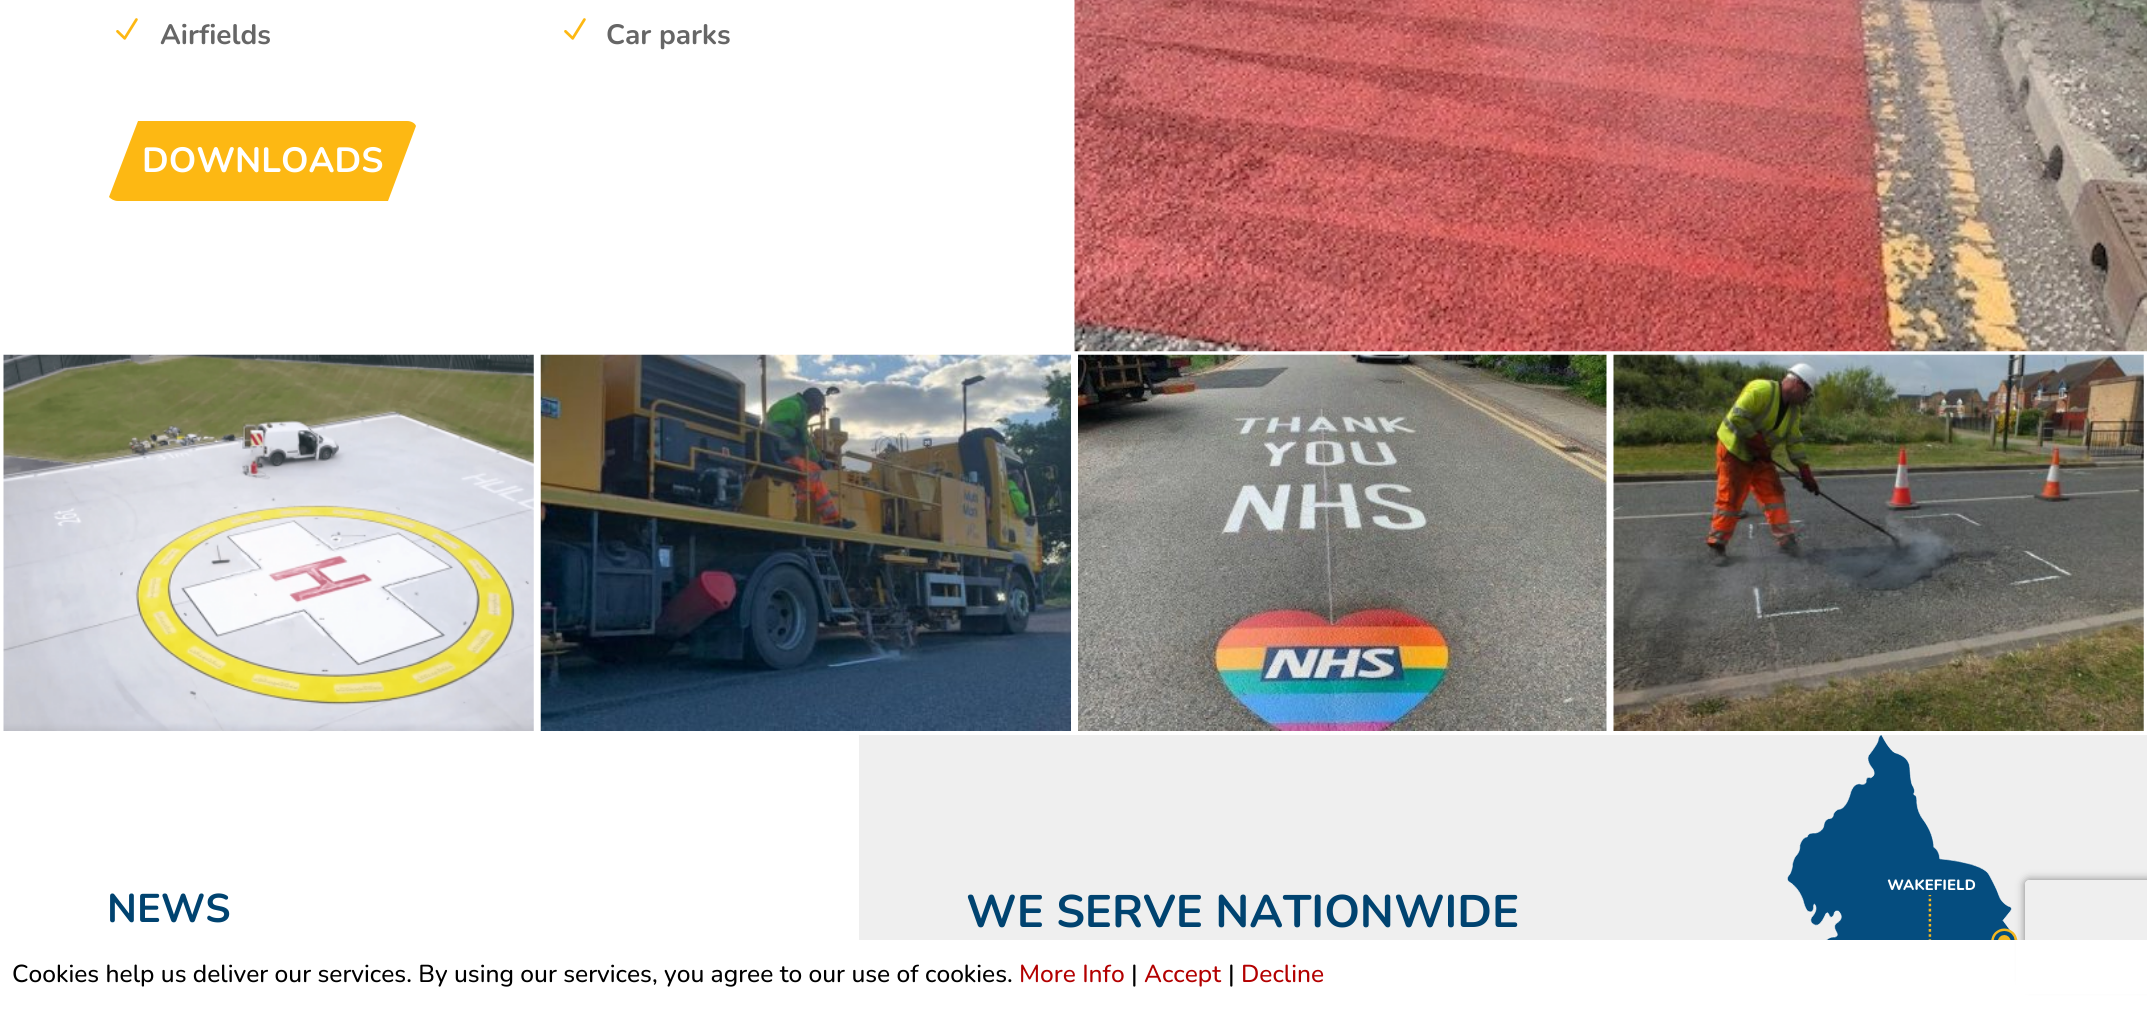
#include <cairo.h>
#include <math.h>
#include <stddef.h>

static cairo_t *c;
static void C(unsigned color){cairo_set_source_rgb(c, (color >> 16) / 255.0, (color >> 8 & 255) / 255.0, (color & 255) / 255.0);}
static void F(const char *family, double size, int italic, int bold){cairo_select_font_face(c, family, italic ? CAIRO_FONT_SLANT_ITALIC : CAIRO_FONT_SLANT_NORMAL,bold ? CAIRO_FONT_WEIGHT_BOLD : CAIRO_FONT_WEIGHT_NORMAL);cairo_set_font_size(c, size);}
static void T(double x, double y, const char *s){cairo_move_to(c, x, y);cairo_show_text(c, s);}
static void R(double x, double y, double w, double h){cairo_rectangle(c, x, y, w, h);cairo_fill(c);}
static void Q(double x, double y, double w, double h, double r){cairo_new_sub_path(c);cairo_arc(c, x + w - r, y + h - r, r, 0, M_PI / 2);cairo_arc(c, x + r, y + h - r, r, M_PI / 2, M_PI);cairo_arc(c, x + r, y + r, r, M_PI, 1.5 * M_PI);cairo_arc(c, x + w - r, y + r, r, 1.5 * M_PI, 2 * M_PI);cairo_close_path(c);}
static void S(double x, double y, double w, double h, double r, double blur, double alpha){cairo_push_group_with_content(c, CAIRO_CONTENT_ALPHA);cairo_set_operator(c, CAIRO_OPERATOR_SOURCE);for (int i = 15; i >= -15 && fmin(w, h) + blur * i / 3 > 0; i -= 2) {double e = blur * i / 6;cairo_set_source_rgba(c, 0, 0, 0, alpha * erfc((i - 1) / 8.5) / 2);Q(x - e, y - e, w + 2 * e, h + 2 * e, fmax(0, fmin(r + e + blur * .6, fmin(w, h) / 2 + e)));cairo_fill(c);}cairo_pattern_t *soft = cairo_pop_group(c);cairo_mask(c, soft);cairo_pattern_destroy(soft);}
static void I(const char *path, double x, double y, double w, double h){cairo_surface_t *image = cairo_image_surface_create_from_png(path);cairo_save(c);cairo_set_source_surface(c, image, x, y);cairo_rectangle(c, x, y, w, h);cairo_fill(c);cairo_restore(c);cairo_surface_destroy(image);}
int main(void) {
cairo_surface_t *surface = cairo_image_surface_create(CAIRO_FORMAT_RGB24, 2147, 1009);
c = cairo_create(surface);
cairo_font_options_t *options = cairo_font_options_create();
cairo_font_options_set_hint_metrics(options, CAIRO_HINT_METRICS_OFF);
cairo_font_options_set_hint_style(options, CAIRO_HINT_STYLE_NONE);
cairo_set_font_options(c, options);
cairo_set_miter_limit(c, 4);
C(0xffffff);
cairo_paint(c);
I("1.png",116,18,22,22);
F("Nunito",28,0,1);
C(0x666666);
T(160,44,"Airfields");
I("1.png",564,18,22,22);
T(606,44,"Car parks");
C(0xfdb813);
cairo_new_path(c);
cairo_move_to(c,109,197);
cairo_line_to(c,138,121);
cairo_line_to(c,407,121);
cairo_curve_to(c,411,121,415,123,416,126);
cairo_line_to(c,388,201);
cairo_line_to(c,118,201);
cairo_curve_to(c,114,201,111,199,109,197);
cairo_close_path(c);
cairo_fill(c);
F("Nunito",35,0,1);
C(0xffffff);
T(142,172,"DOWNLOADS");
I("2.png",1074,0,1073,352);
I("3.png",3,354,531,377);
I("4.png",540,354,531,377);
I("5.png",1078,354,529,377);
I("6.png",1613,354,531,377);
F("Nunito",40,0,1);
C(0x004370);
T(107,922,"NEWS");
C(0xefefef);
R(859,735,1288,205);
I("7.png",1786,735,232,205);
F("Nunito",45.5,0,1);
C(0x004370);
T(966,927,"WE SERVE NATIONWIDE");
cairo_save(c);
cairo_set_fill_rule(c,CAIRO_FILL_RULE_EVEN_ODD);
cairo_new_path(c);
cairo_move_to(c,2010,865);
cairo_line_to(c,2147,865);
cairo_line_to(c,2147,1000);
cairo_line_to(c,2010,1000);
cairo_close_path(c);
cairo_move_to(c,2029,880);
cairo_line_to(c,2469,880);
cairo_curve_to(c,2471,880,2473,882,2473,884);
cairo_line_to(c,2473,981);
cairo_curve_to(c,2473,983,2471,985,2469,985);
cairo_line_to(c,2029,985);
cairo_curve_to(c,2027,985,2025,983,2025,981);
cairo_line_to(c,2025,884);
cairo_curve_to(c,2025,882,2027,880,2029,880);
cairo_close_path(c);
cairo_clip(c);
C(0x808080);
S(2025,880,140,105,4,4.5,1);
cairo_restore(c);
C(0xffffff);
R(2016,940,131,54);
F("Nunito Medium",24.5,0,0);
C(0x000000);
T(12,982,"Cookies help us deliver our services. By using our services, you agree to our use of cookies.");
C(0xb30000);
T(1019,982,"More Info");
C(0x000000);
T(1131,982,"|");
C(0xb30000);
T(1144,982,"Accept");
C(0x000000);
T(1228,982,"|");
C(0xb30000);
T(1241,982,"Decline");
cairo_surface_write_to_png(surface, "o.png");
cairo_font_options_destroy(options);
cairo_destroy(c);
cairo_surface_destroy(surface);
return 0;
}
